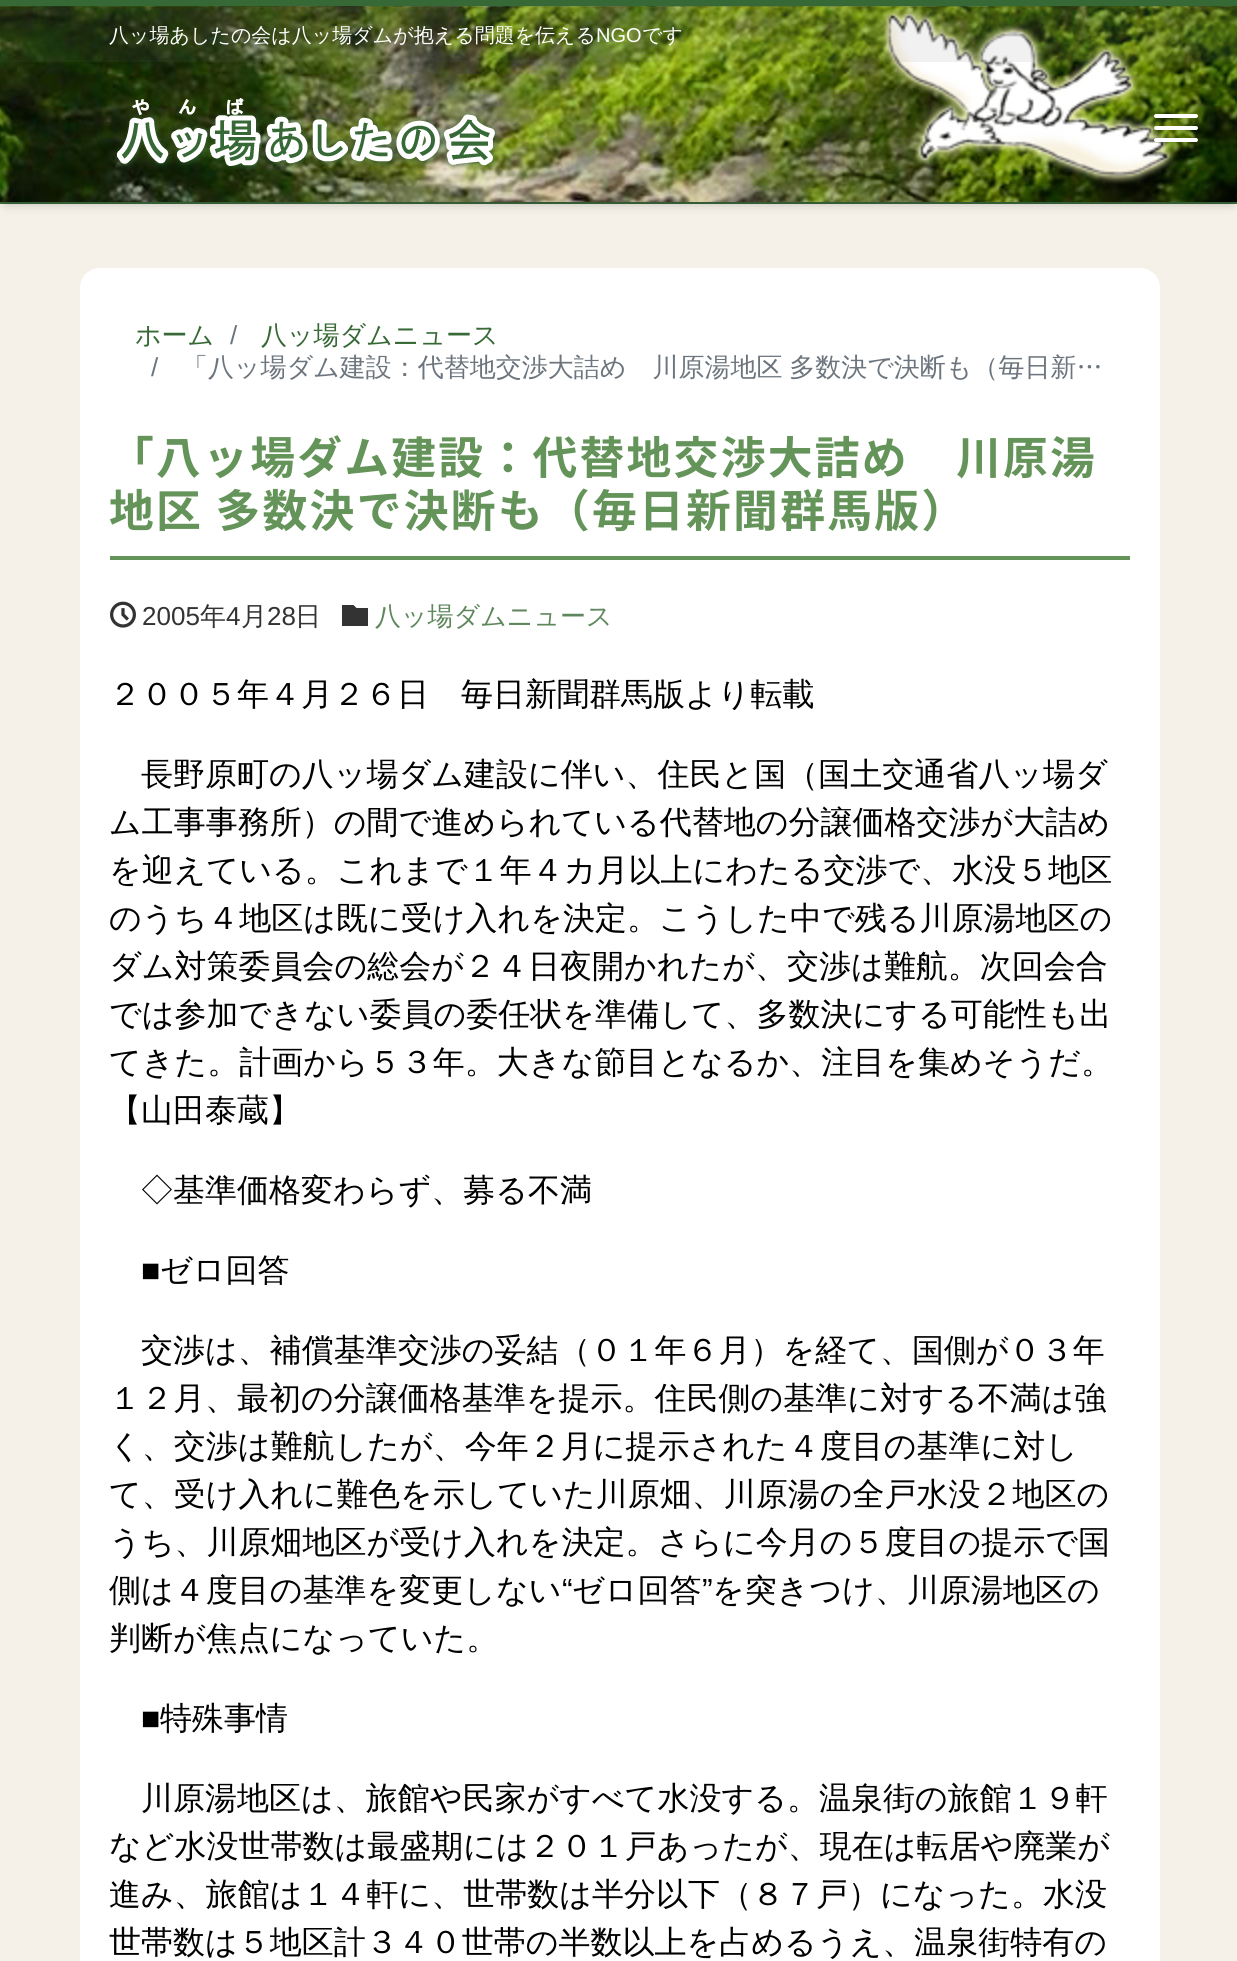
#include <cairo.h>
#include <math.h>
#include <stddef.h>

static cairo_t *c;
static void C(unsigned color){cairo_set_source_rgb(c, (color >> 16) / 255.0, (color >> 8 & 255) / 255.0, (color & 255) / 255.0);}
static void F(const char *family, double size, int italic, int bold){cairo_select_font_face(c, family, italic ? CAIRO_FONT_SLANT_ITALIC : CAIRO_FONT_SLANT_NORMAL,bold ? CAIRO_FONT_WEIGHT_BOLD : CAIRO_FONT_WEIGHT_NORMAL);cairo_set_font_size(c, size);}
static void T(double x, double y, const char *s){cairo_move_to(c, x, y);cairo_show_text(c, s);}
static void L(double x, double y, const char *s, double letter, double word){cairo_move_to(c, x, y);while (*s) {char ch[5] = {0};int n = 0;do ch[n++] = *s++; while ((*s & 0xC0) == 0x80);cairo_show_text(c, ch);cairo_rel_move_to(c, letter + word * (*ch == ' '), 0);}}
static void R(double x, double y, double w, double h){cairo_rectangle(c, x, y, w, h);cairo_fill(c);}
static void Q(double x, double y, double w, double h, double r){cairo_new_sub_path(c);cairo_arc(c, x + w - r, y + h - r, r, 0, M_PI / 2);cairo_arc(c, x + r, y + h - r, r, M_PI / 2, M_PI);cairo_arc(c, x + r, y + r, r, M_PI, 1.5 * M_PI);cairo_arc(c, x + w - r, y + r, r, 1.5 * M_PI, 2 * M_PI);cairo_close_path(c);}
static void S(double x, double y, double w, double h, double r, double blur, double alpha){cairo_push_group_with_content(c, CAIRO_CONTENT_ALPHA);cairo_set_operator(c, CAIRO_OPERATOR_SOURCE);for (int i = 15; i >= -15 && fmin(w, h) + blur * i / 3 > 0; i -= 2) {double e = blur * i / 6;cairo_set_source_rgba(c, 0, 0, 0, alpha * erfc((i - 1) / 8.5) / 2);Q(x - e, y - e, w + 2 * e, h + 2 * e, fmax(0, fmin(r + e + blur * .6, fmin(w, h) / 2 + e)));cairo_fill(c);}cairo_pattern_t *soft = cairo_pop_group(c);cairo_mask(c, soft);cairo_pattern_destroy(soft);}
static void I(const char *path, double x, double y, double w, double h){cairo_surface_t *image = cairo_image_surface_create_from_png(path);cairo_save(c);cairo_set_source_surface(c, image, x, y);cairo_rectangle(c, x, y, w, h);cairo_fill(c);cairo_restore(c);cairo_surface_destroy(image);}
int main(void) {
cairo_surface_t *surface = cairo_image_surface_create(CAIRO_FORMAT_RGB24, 1237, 1961);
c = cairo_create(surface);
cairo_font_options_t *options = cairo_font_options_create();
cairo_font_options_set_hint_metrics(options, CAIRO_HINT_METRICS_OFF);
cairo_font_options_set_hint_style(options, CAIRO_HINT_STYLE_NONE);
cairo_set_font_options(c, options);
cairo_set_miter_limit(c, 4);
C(0xf5f1e8);
cairo_paint(c);
C(0x3d6a3d);
R(0,202,1237,2);
C(0x000000);
S(6,12,1226,190,0,6,.3);
I("1.png",0,6,1237,196);
C(0x376936);
R(0,0,1237,6);
cairo_set_source_rgba(c,0.467,0.467,0.467,0.1);
R(0,6,1237,56);
F("WenQuanYi Zen Hei Medium",20,0,0);
C(0xffffff);
T(109,42,"八ッ場あしたの会は八ッ場ダムが抱える問題を伝える");
F("Liberation Sans",20,0,0);
T(596,42,"NGO");
F("WenQuanYi Zen Hei Medium",20,0,0);
T(642,42,"です");
I("2.png",114,98,386,72);
Q(1154,114,44,4,2);
cairo_fill(c);
Q(1154,126,44,4,2);
cairo_fill(c);
Q(1154,138,44,4,2);
cairo_fill(c);
Q(80,268,1080,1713,20);
cairo_fill(c);
F("WenQuanYi Zen Hei Medium",26,0,0);
C(0x376936);
T(135,344,"ホーム");
F("Liberation Sans",26,0,0);
C(0x6c757d);
T(230,344,"/");
F("WenQuanYi Zen Hei Medium",26,0,0);
C(0x376936);
T(261,344,"八ッ場ダムニュース");
F("Liberation Sans",26,0,0);
C(0x6c757d);
T(151,376,"/");
F("WenQuanYi Zen Hei Medium",26,0,0);
L(182,376,"「八ッ場ダム建設：代替地交渉大詰め　川原湯地区 多数決で決断も（毎日新…",0,-1);
C(0x649459);
R(110,556,1020,4);
F("Noto Sans JP",44.8,0,1);
L(109,474,"「八ッ場ダム建設：代替地交渉大詰め　川原湯",2.25,0);
L(109,527,"地区 多数決で決断も（毎日新聞群馬版）",2.25,0);
I("3.png",110,601,26,27);
F("Liberation Sans",26,0,0);
C(0x333333);
T(142,625,"2005");
F("WenQuanYi Zen Hei Medium",26,0,0);
T(200,625,"年");
F("Liberation Sans",26,0,0);
T(226,625,"4");
F("WenQuanYi Zen Hei Medium",26,0,0);
T(241,625,"月");
F("Liberation Sans",26,0,0);
T(267,625,"28");
F("WenQuanYi Zen Hei Medium",26,0,0);
T(295,625,"日");
C(0x5f875e);
T(375,625,"八ッ場ダムニュース");
C(0x333333);
cairo_new_path(c);
cairo_move_to(c,353.5,605);
cairo_line_to(c,356.5,608);
cairo_line_to(c,368,608);
cairo_line_to(c,368,626);
cairo_line_to(c,342,626);
cairo_line_to(c,342,605);
cairo_close_path(c);
cairo_fill(c);
F("WenQuanYi Zen Hei Medium",32,0,0);
C(0x000000);
T(109,705,"２００５年４月２６日　毎日新聞群馬版より転載");
T(141,785,"長野原町の八ッ場ダム建設に伴い、住民と国（国土交通省八ッ場ダ");
T(109,833,"ム工事事務所）の間で進められている代替地の分譲価格交渉が大詰め");
T(109,881,"を迎えている。これまで１年４カ月以上にわたる交渉で、水没５地区");
T(109,929,"のうち４地区は既に受け入れを決定。こうした中で残る川原湯地区の");
T(109,977,"ダム対策委員会の総会が２４日夜開かれたが、交渉は難航。次回会合");
T(109,1025,"では参加できない委員の委任状を準備して、多数決にする可能性も出");
T(109,1073,"てきた。計画から５３年。大きな節目となるか、注目を集めそうだ。");
T(109,1121,"【山田泰蔵】");
T(141,1201,"◇基準価格変わらず、募る不満");
F("Liberation Sans",32,0,0);
T(141,1281,"■");
F("WenQuanYi Zen Hei Medium",32,0,0);
T(160,1281,"ゼロ回答");
T(141,1361,"交渉は、補償基準交渉の妥結（０１年６月）を経て、国側が０３年");
T(109,1409,"１２月、最初の分譲価格基準を提示。住民側の基準に対する不満は強");
T(109,1457,"く、交渉は難航したが、今年２月に提示された４度目の基準に対し");
T(109,1505,"て、受け入れに難色を示していた川原畑、川原湯の全戸水没２地区の");
T(109,1553,"うち、川原畑地区が受け入れを決定。さらに今月の５度目の提示で国");
T(109,1601,"側は４度目の基準を変更しない");
F("Liberation Sans",32,0,0);
T(562,1601,"“");
F("WenQuanYi Zen Hei Medium",32,0,0);
T(572,1601,"ゼロ回答");
F("Liberation Sans",32,0,0);
T(702,1601,"”");
F("WenQuanYi Zen Hei Medium",32,0,0);
T(712,1601,"を突きつけ、川原湯地区の");
T(109,1649,"判断が焦点になっていた。");
F("Liberation Sans",32,0,0);
T(141,1729,"■");
F("WenQuanYi Zen Hei Medium",32,0,0);
T(160,1729,"特殊事情");
T(141,1809,"川原湯地区は、旅館や民家がすべて水没する。温泉街の旅館１９軒");
T(109,1857,"など水没世帯数は最盛期には２０１戸あったが、現在は転居や廃業が");
T(109,1905,"進み、旅館は１４軒に、世帯数は半分以下（８７戸）になった。水没");
T(109,1953,"世帯数は５地区計３４０世帯の半数以上を占めるうえ、温泉街特有の");
cairo_surface_write_to_png(surface, "o.png");
cairo_font_options_destroy(options);
cairo_destroy(c);
cairo_surface_destroy(surface);
return 0;
}
